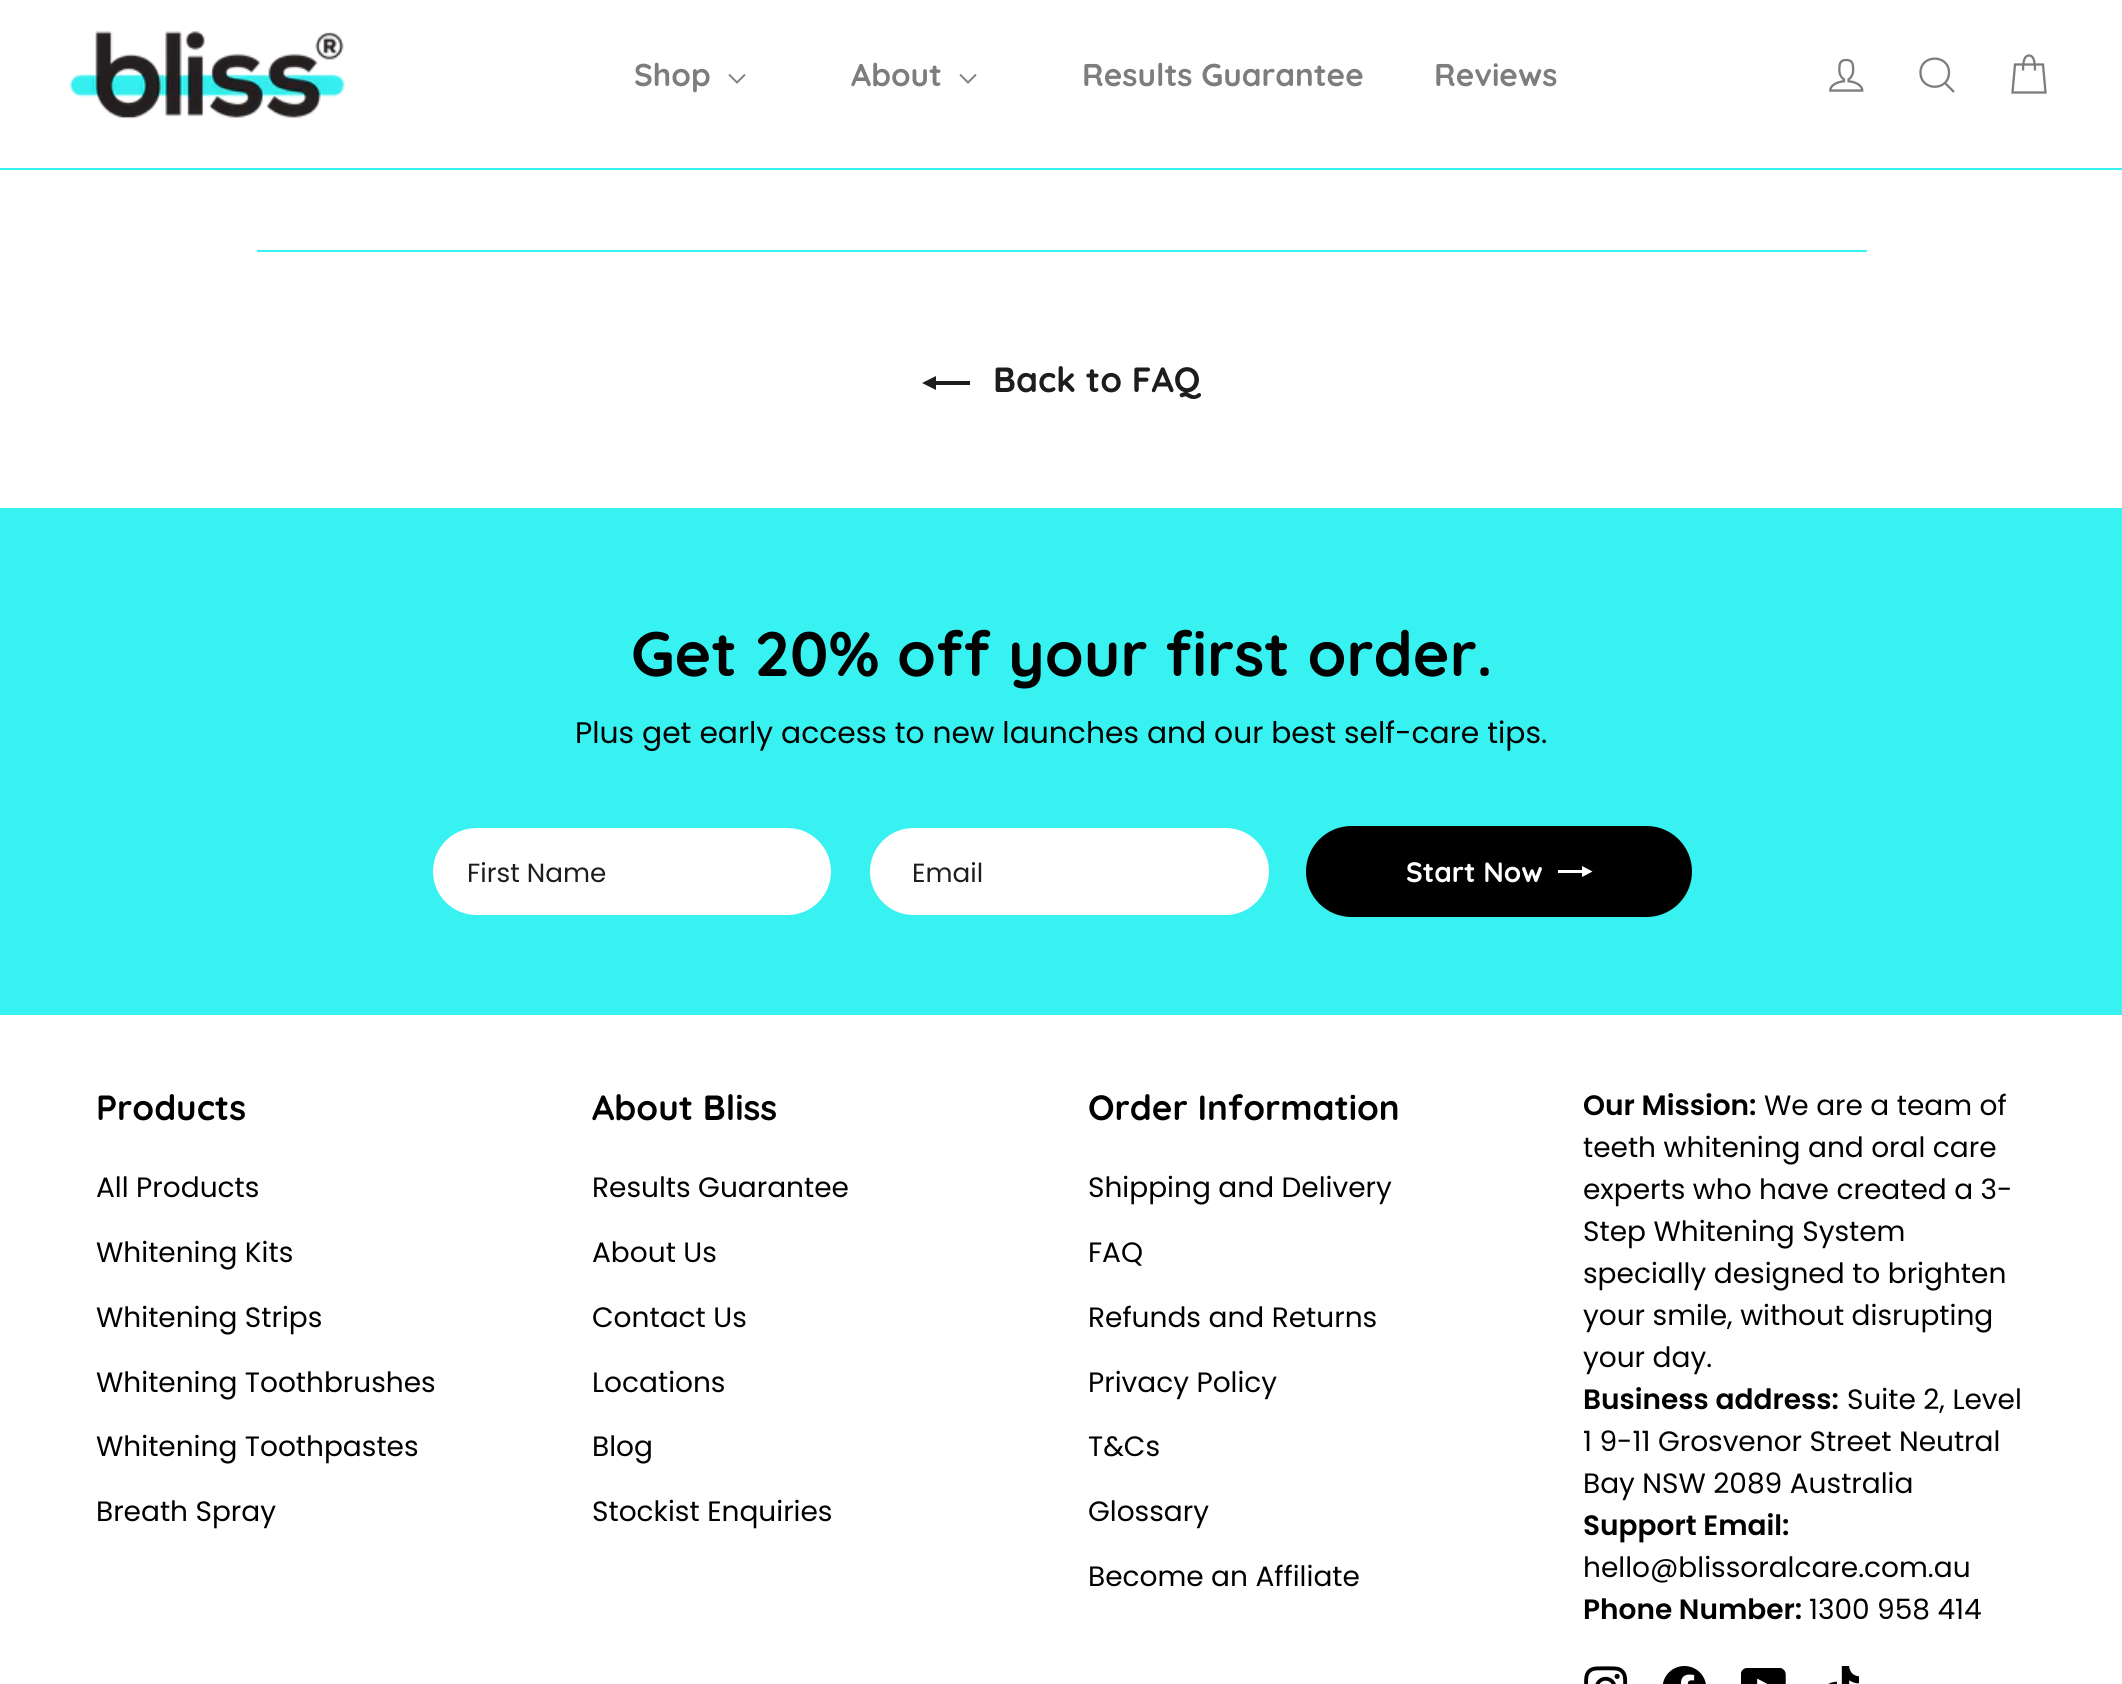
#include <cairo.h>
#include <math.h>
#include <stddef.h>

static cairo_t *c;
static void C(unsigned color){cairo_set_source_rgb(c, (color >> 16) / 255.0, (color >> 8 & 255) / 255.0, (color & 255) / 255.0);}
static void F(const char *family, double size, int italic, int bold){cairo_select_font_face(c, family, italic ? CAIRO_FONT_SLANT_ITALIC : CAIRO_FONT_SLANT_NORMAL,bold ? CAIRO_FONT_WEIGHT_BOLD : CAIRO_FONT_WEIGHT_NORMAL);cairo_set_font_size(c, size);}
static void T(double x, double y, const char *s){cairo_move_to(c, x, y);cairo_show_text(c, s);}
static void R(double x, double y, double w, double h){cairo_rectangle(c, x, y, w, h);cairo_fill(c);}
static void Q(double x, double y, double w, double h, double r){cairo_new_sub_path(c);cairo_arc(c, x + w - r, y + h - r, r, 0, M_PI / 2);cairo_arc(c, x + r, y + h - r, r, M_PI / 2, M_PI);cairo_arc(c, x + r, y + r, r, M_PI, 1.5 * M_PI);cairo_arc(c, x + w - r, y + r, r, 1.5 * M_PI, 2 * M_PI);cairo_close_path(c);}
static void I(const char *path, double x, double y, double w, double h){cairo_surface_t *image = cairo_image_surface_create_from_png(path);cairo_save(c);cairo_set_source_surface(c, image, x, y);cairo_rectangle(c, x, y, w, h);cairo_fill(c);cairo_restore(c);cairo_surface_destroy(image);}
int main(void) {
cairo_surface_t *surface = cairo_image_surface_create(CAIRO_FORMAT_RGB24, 2122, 1684);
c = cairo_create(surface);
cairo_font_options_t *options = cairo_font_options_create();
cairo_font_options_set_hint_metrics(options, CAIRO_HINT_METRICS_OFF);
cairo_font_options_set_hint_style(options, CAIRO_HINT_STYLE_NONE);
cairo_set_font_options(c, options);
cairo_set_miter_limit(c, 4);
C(0xffffff);
cairo_paint(c);
C(0x38f1f1);
R(0,168,2122,2);
I("1.png",70,31,275,88);
F("Quicksand",31.5,0,1);
C(0x7d7d7d);
T(634,86,"Shop");
cairo_new_path(c);
cairo_move_to(c,729,74.5);
cairo_line_to(c,737,82.5);
cairo_line_to(c,745,74.5);
cairo_set_line_width(c,1.9);
cairo_stroke(c);
T(851,86,"About");
cairo_new_path(c);
cairo_move_to(c,960,74.5);
cairo_line_to(c,968,82.5);
cairo_line_to(c,976,74.5);
cairo_stroke(c);
T(1082,86,"Results Guarantee");
T(1434,86,"Reviews");
I("2.png",1829,58,35,34);
cairo_new_path(c);
cairo_move_to(c,1949,72.5);
cairo_curve_to(c,1949,91.5,1920.5,91.5,1920.5,72.5);
cairo_curve_to(c,1920.5,54,1949,54,1949,72.5);
cairo_close_path(c);
cairo_move_to(c,1954,92);
cairo_line_to(c,1945,83);
cairo_set_line_width(c,2.3);
cairo_stroke(c);
cairo_new_path(c);
cairo_move_to(c,2023,70.5);
cairo_curve_to(c,2023,58.5,2025.5,55.5,2029,55.5);
cairo_curve_to(c,2032.5,55.5,2035,58.5,2035,70.5);
cairo_move_to(c,2015,64.5);
cairo_line_to(c,2043,64.5);
cairo_line_to(c,2045.5,92.5);
cairo_line_to(c,2012.5,92.5);
cairo_close_path(c);
cairo_stroke(c);
C(0x38f1f1);
R(257,250,1610,2);
C(0x1c1d1d);
cairo_new_path(c);
cairo_move_to(c,970,381);
cairo_line_to(c,970,385);
cairo_line_to(c,936,385);
cairo_line_to(c,936,390);
cairo_line_to(c,922,383);
cairo_line_to(c,936,376);
cairo_line_to(c,936,381);
cairo_close_path(c);
cairo_fill(c);
F("Quicksand",35,0,1);
T(993,392,"Back to FAQ");
C(0x38f1f1);
R(0,508,2122,507);
F("Quicksand",62.5,0,1);
C(0x000000);
T(631,676,"Get 20% off your first order.");
F("Poppins",29.75,0,0);
T(575,743,"Plus get early access to new launches and our best self-care tips.");
C(0xffffff);
Q(432,827,400,89,44.5);
cairo_fill_preserve(c);
C(0x38f1f1);
cairo_set_line_width(c,2);
cairo_stroke(c);
F("Poppins",26.25,0,0);
C(0x1c1d1d);
T(467,882,"First Name");
C(0xffffff);
Q(869,827,401,89,44.5);
cairo_fill_preserve(c);
C(0x38f1f1);
cairo_stroke(c);
C(0x1c1d1d);
T(912,882,"Email");
C(0x000000);
Q(1306,826,386,91,45.5);
cairo_fill(c);
F("Quicksand",28,0,1);
C(0xffffff);
T(1406,882,"Start Now");
cairo_save(c);
cairo_rectangle(c,1558,854,35,35);
cairo_clip(c);
cairo_new_path(c);
cairo_move_to(c,1557.5,873);
cairo_line_to(c,1557.5,870);
cairo_line_to(c,1582,870);
cairo_line_to(c,1582,866);
cairo_line_to(c,1592.5,871.5);
cairo_line_to(c,1582,877);
cairo_line_to(c,1582,873);
cairo_close_path(c);
cairo_fill(c);
cairo_restore(c);
F("Quicksand",35,0,1);
C(0x000000);
T(96,1120,"Products");
F("Poppins",28,0,0);
T(96,1197,"All Products");
T(96,1262,"Whitening Kits");
T(96,1327,"Whitening Strips");
T(96,1392,"Whitening Toothbrushes");
T(96,1456,"Whitening Toothpastes");
T(96,1521,"Breath Spray");
F("Quicksand",35,0,1);
T(592,1120,"About Bliss");
F("Poppins",28,0,0);
T(592,1197,"Results Guarantee");
T(592,1262,"About Us");
T(592,1327,"Contact Us");
T(592,1392,"Locations");
T(592,1456,"Blog");
T(592,1521,"Stockist Enquiries");
F("Quicksand",35,0,1);
T(1088,1120,"Order Information");
F("Poppins",28,0,0);
T(1088,1197,"Shipping and Delivery");
T(1088,1262,"FAQ");
T(1088,1327,"Refunds and Returns");
T(1088,1392,"Privacy Policy");
T(1088,1456,"T&Cs");
T(1088,1521,"Glossary");
T(1088,1586,"Become an Affiliate");
F("Poppins SemiBold",28,0,0);
T(1583,1115,"Our Mission:");
F("Poppins",28,0,0);
T(1764,1115,"We are a team of");
T(1583,1157,"teeth whitening and oral care");
T(1583,1199,"experts who have created a 3-");
T(1583,1241,"Step Whitening System");
T(1583,1283,"specially designed to brighten");
T(1583,1325,"your smile, without disrupting");
T(1583,1367,"your day.");
F("Poppins SemiBold",28,0,0);
T(1583,1409,"Business address:");
F("Poppins",28,0,0);
T(1847,1409,"Suite 2, Level");
T(1583,1451,"1 9-11 Grosvenor Street Neutral");
T(1583,1493,"Bay NSW 2089 Australia");
F("Poppins SemiBold",28,0,0);
T(1583,1535,"Support Email:");
F("Poppins",28,0,0);
T(1583,1577,"hello@blissoralcare.com.au");
F("Poppins SemiBold",28,0,0);
T(1583,1619,"Phone Number:");
F("Poppins",28,0,0);
T(1809,1619,"1300 958 414");
I("3.png",1584,1666,44,18);
I("4.png",1663,1666,43,18);
I("5.png",1741,1668,45,16);
I("6.png",1828,1666,31,18);
cairo_surface_write_to_png(surface, "o.png");
cairo_font_options_destroy(options);
cairo_destroy(c);
cairo_surface_destroy(surface);
return 0;
}
